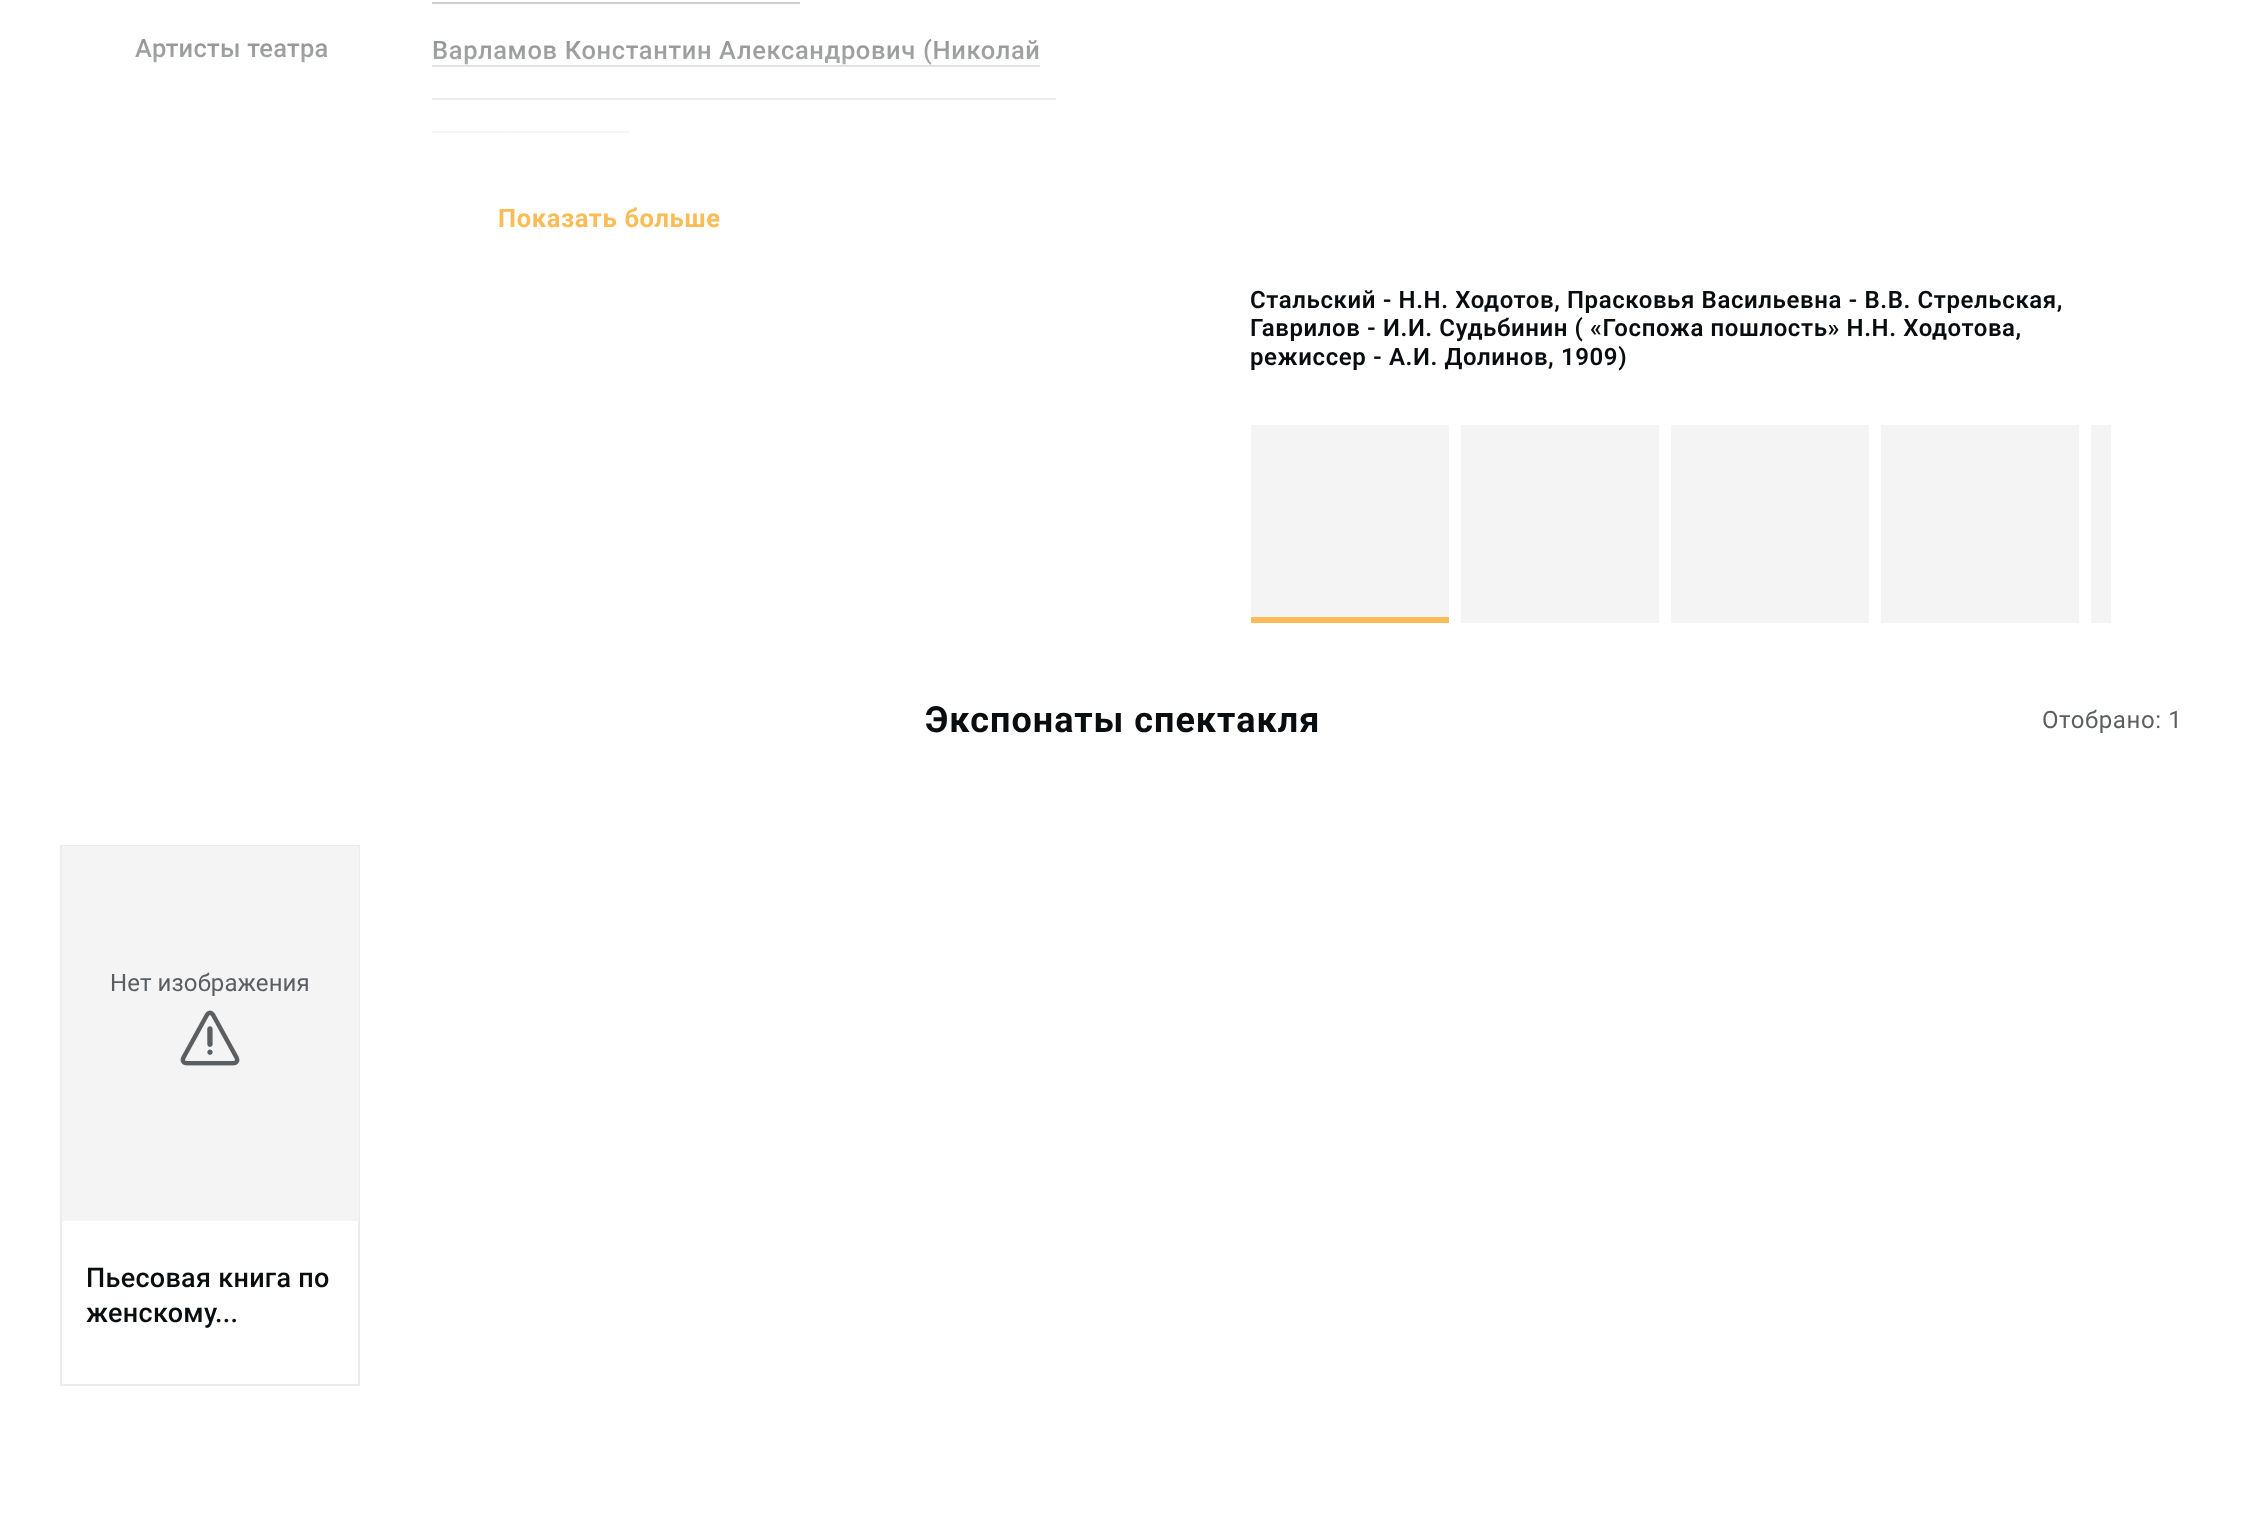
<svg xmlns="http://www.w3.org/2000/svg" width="2245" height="1526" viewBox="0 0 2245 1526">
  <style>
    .t1 { font: 500 25.5px Roboto; letter-spacing: 0.25px; fill: #0a0d10; }
    .t2 { font: 500 25.5px Roboto; letter-spacing: 0.65px; fill: #0a0d10; }
    .t3 { font: bold 25.5px Roboto; letter-spacing: 0.65px; fill: #fabc57; }
    .t4 { font: 600 24px Roboto; letter-spacing: 0.6px; fill: #0a0d10; }
    .t5 { font: bold 36px Roboto; letter-spacing: 1px; fill: #0a0d10; }
    .t6 { font: 24px Roboto; letter-spacing: 0.6px; fill: #5c5f62; }
    .t7 { font: 24px Roboto; letter-spacing: 0.1px; fill: #5c5f62; }
    .t8 { font: 500 27px Roboto; letter-spacing: 0.3px; fill: #0a0d10; }
  </style>
  <defs>
    <linearGradient id="g1" gradientUnits="userSpaceOnUse" x1="609" y1="-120" x2="609" y2="240"><stop offset="0" stop-color="#fff" stop-opacity="0.01"/><stop offset="0.8" stop-color="#fff"/></linearGradient>
  </defs>
  <rect width="100%" height="100%" fill="#fff"/>
  <rect x="432" y="2" width="368" height="2" fill="#acacac"/>
  <text x="135" y="57" class="t1">Артисты театра</text>
  <text x="432" y="59" class="t2">Варламов Константин Александрович (Николай</text>
  <rect x="432" y="65" width="608" height="2" fill="#acacac"/>
  <rect x="432" y="98" width="624" height="2" fill="#acacac"/>
  <rect x="432" y="131" width="198" height="2" fill="#acacac"/>
  <rect x="432" y="164" width="587" height="2" fill="#acacac"/>
  <rect x="135" y="2" width="921" height="164" fill="url(#g1)"/>
  <text x="498" y="227" class="t3">Показать больше</text>
  <text x="1250" y="308" class="t4">Стальский - Н.Н. Ходотов, Прасковья Васильевна - В.В. Стрельская,</text>
  <text x="1250" y="336" class="t4">Гаврилов - И.И. Судьбинин ( «Госпожа пошлость» Н.Н. Ходотова,</text>
  <text x="1250" y="365" class="t4">режиссер - А.И. Долинов, 1909)</text>
  <rect x="1251" y="425" width="198" height="192" fill="#f4f4f5"/>
  <rect x="1251" y="617" width="198" height="6" fill="#fabc57"/>
  <rect x="1461" y="425" width="198" height="198" fill="#f4f4f5"/>
  <rect x="1671" y="425" width="198" height="198" fill="#f4f4f5"/>
  <rect x="1881" y="425" width="198" height="198" fill="#f4f4f5"/>
  <rect x="2091" y="425" width="20" height="198" fill="#f4f4f5"/>
  <text x="925" y="732" class="t5">Экспонаты спектакля</text>
  <text x="2042" y="728" class="t6">Отобрано: 1</text>
  <rect x="61" y="846" width="298" height="539" fill="none" stroke="#ececec" stroke-width="2"/>
  <rect x="62" y="846" width="297" height="375" fill="#f4f4f5"/>
  <text x="110" y="991" class="t7">Нет изображения</text>
  <image x="180" y="1010" width="60" height="56" href="images/1.png"/>
  <text x="86" y="1287" class="t8">Пьесовая книга по</text>
  <text x="86" y="1322" class="t8">женскому</text>
  <text x="215" y="1322" class="t8">...</text>
</svg>
